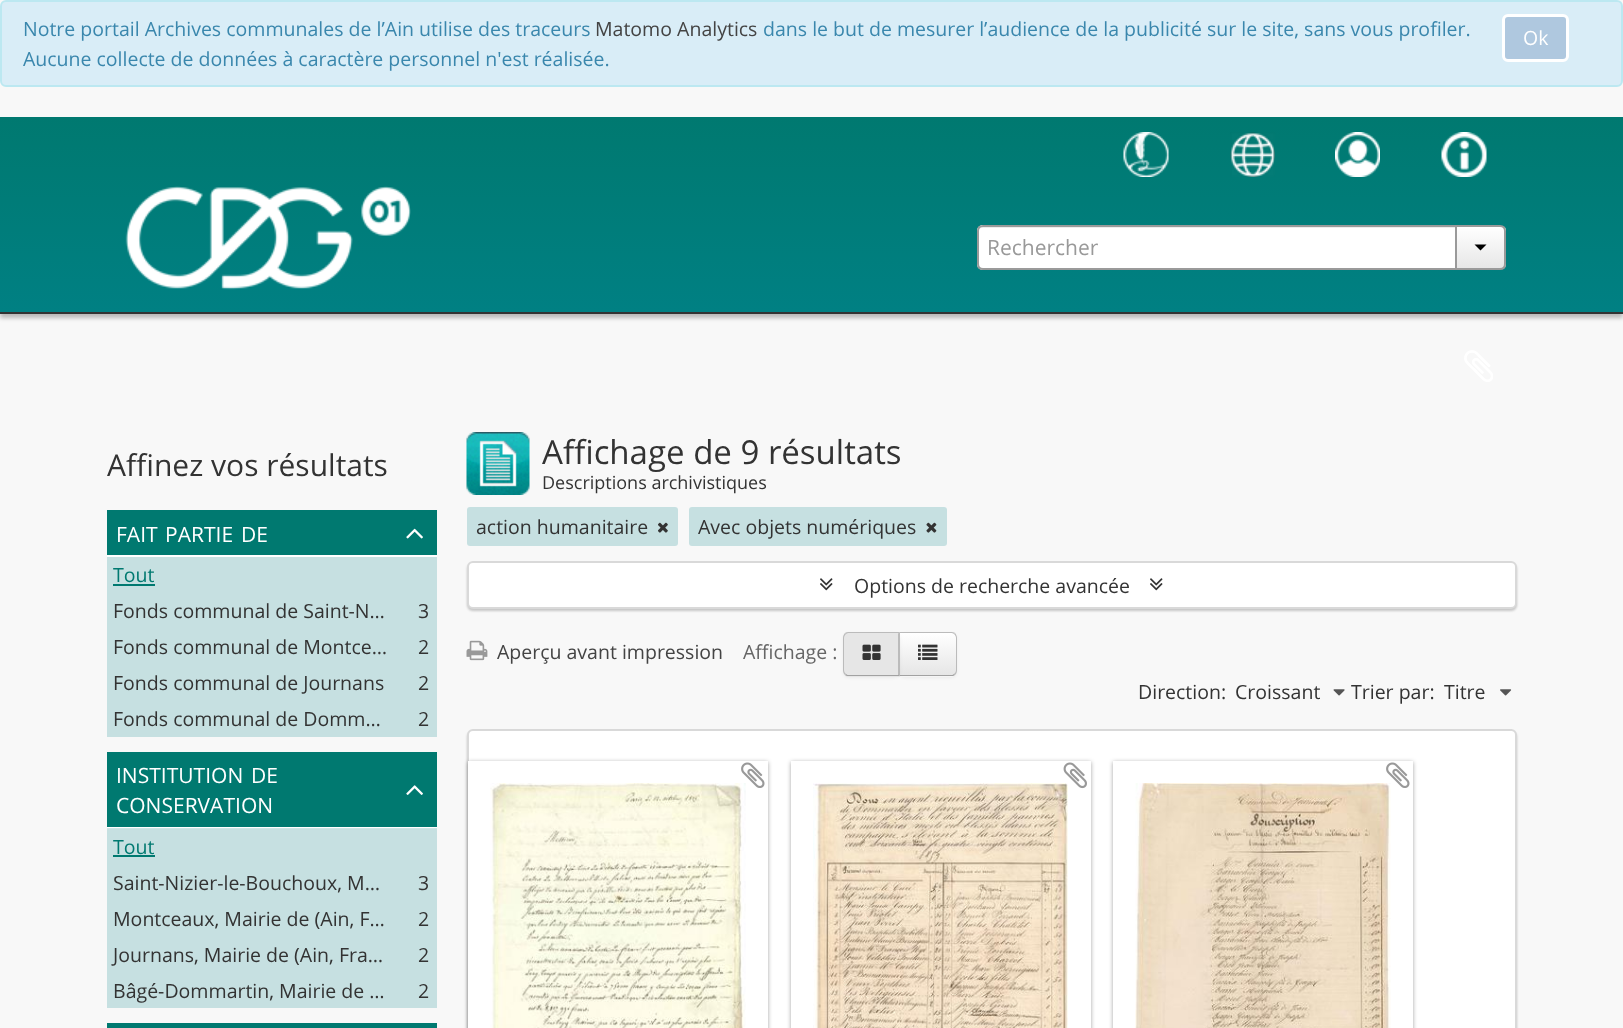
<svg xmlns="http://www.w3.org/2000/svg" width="1623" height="1028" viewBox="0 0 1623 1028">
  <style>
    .t1 { font: 19.5px Open Sans; fill: #3a87ad; }
    .t2 { font: 19.5px Open Sans; fill: #444; }
    .t3 { font: 19.5px Open Sans; fill: #fff; }
    .t4 { font: 21px Open Sans; fill: #999; }
    .t5 { font: 30px Open Sans; fill: #333; }
    .t6 { font: 21px Open Sans; fill: #fff; }
    .t7 { font: 19.5px Open Sans; fill: #007970; }
    .t8 { font: 19.5px Open Sans; fill: #333; }
    .t9 { font: 33px Open Sans; fill: #333; }
    .t10 { font: 18px Open Sans; fill: #333; }
    .t11 { font: 19.5px Open Sans; fill: #666; }
  </style>
  <defs>
    <linearGradient id="g1" gradientUnits="userSpaceOnUse" x1="812" y1="117" x2="812" y2="312"><stop offset="0" stop-color="#007970"/><stop offset="1" stop-color="#008083"/></linearGradient>
    <clipPath id="clip1"><path d="M1455 225H1500C1503.5 225 1506 227.5 1506 231V264C1506 267.5 1503.5 270 1500 270H1455Z"/></clipPath>
    <linearGradient id="g2" gradientUnits="userSpaceOnUse" x1="1481" y1="227" x2="1481" y2="269"><stop offset="0" stop-color="#fff"/><stop offset="1" stop-color="#e6e6e6"/></linearGradient>
    <clipPath id="clip2"><path d="M899 632H951C954.5 632 957 634.5 957 638V671C957 674.5 954.5 677 951 677H899Z"/></clipPath>
    <linearGradient id="g3" gradientUnits="userSpaceOnUse" x1="928" y1="633" x2="928" y2="675"><stop offset="0" stop-color="#fff"/><stop offset="1" stop-color="#e6e6e6"/></linearGradient>
    <clipPath id="clip3"><path d="M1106 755H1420V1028H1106ZM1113 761H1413V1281H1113Z" clip-rule="evenodd"/></clipPath>
  </defs>
  <rect width="100%" height="100%" fill="#f8f8f8"/>
  <rect x="107" y="829" width="330" height="179" fill="#c6e0e1"/>
  <rect x="1" y="1" width="1621" height="85" rx="5" fill="#d9edf7" stroke="#bce8f1" stroke-width="2"/>
  <text x="23" y="36" class="t1">Notre portail Archives communales de l’Ain utilise des traceurs</text>
  <text x="595" y="36" class="t2">Matomo Analytics</text>
  <text x="763" y="36" class="t1">dans le but de mesurer l’audience de la publicité sur le site, sans vous profiler.</text>
  <text x="23" y="66" class="t1">Aucune collecte de données à caractère personnel n'est réalisée.</text>
  <rect x="1503.5" y="15.5" width="64" height="45" rx="4.5" fill="#afc8df" stroke="#fff" stroke-width="3"/>
  <text x="1523" y="45" class="t3">Ok</text>
  <rect x="0" y="122" width="1623" height="196" fill="#00000040" filter="blur(2px)"/>
  <rect x="0" y="117" width="1623" height="195" fill="url(#g1)"/>
  <rect x="0" y="312" width="1623" height="2" fill="#333"/>
  <image x="1123" y="132" width="46" height="45" href="images/1.png"/>
  <image x="1230" y="132" width="45" height="45" href="images/2.png"/>
  <image x="1335" y="132" width="45" height="45" href="images/3.png"/>
  <image x="1441" y="132" width="46" height="45" href="images/4.png"/>
  <image x="125" y="186" width="286" height="104" href="images/5.png"/>
  <path d="M983 225H1457V270H983C979.5 270 977 267.5 977 264V231C977 227.5 979.5 225 983 225Z" fill="#fff"/>
  <path d="M982 228H1455V227H983C980 227 978 229 978 232C978 230 980 228 982 228Z" fill="#ececec"/>
  <path d="M983 226H1456V269H983C980 269 978 267 978 264V231C978 228 980 226 983 226Z" fill="none" stroke="#9a9a9a" stroke-width="2"/>
  <text x="987" y="255" class="t4">Rechercher</text>
  <g clip-path="url(#clip1)">
    <rect x="1457" y="227" width="49" height="42" fill="url(#g2)"/>
  </g>
  <path d="M1457 227V228H1493C1507 228 1504 229 1504 243V267C1505 266 1505 265 1505 264V232C1505 229 1503 227 1500 227Z" fill="#ffffff33"/>
  <path d="M1456 226H1500C1503 226 1505 228 1505 231V264C1505 267 1503 269 1500 269H1456Z" fill="none" stroke="#9a9a9a" stroke-width="2"/>
  <path d="M1474.5 244.5H1486.5L1480.5 250.5Z" fill="#000"/>
  <image x="1464" y="350" width="29" height="32" href="images/6.png"/>
  <text x="107" y="476" class="t5">Affinez vos résultats</text>
  <rect x="107" y="555" width="330" height="2" fill="#fff"/>
  <rect x="107" y="510" width="330" height="45" fill="#007970"/>
  <text x="116" y="542" class="t6">FAIT</text>
  <text x="165" y="542" class="t6">PARTIE</text>
  <text x="241" y="542" class="t6">DE</text>
  <image x="406" y="528" width="17" height="11" href="images/7.png"/>
  <rect x="107" y="557" width="330" height="180" fill="#c6e0e1"/>
  <text x="113" y="582" class="t7">Tout</text>
  <rect x="113" y="584" width="42" height="2" fill="#007970"/>
  <text x="113" y="618" class="t8">Fonds communal de Saint-N…</text>
  <text x="418" y="618" class="t8">3</text>
  <text x="113" y="654" class="t8">Fonds communal de Montce…</text>
  <text x="418" y="654" class="t8">2</text>
  <text x="113" y="690" class="t8">Fonds communal de Journans</text>
  <text x="418" y="690" class="t8">2</text>
  <text x="113" y="726" class="t8">Fonds communal de Domm…</text>
  <text x="418" y="726" class="t8">2</text>
  <rect x="107" y="827" width="330" height="1" fill="#fff"/>
  <rect x="107" y="828" width="330" height="1" fill="#cce6e6"/>
  <rect x="107" y="752" width="330" height="75" fill="#007970"/>
  <text x="116" y="783" class="t6">INSTITUTION</text>
  <text x="251" y="783" class="t6">DE</text>
  <image x="406" y="785" width="17" height="10" href="images/8.png"/>
  <text x="116" y="813" class="t6">CONSERVATION</text>
  <text x="113" y="854" class="t7">Tout</text>
  <rect x="113" y="855" width="42" height="2" fill="#007970"/>
  <text x="113" y="890" class="t8">Saint-Nizier-le-Bouchoux, M…</text>
  <text x="418" y="890" class="t8">3</text>
  <text x="113" y="926" class="t8">Montceaux, Mairie de (Ain, F…</text>
  <text x="418" y="926" class="t8">2</text>
  <text x="113" y="962" class="t8">Journans, Mairie de (Ain, Fra…</text>
  <text x="418" y="962" class="t8">2</text>
  <text x="113" y="998" class="t8">Bâgé-Dommartin, Mairie de …</text>
  <text x="418" y="998" class="t8">2</text>
  <rect x="107" y="1023" width="330" height="5" fill="#007970"/>
  <image x="466" y="432" width="64" height="63" href="images/9.png"/>
  <text x="542" y="464" class="t9">Affichage de 9 résultats</text>
  <text x="542" y="489" class="t10">Descriptions archivistiques</text>
  <rect x="467" y="507" width="211" height="39" rx="3" fill="#c6e0e1"/>
  <text x="476" y="534" class="t8">action humanitaire</text>
  <image x="658" y="522" width="10" height="11" href="images/10.png"/>
  <rect x="689" y="507" width="258" height="39" rx="3" fill="#c6e0e1"/>
  <text x="698" y="534" class="t8">Avec objets numériques</text>
  <image x="926" y="522" width="11" height="11" href="images/11.png"/>
  <rect x="467" y="563" width="1050" height="48" rx="6" fill="#00000033" filter="blur(1px)"/>
  <rect x="468" y="562" width="1048" height="46" rx="5" fill="#fff" stroke="#d9d9d9" stroke-width="2"/>
  <image x="820" y="578" width="13" height="13" href="images/12.png"/>
  <text x="854" y="593" class="t8">Options de recherche avancée</text>
  <image x="1150" y="578" width="13" height="13" href="images/12.png"/>
  <image x="466" y="640" width="22" height="21" href="images/13.png"/>
  <text x="497" y="659" class="t2">Aperçu avant impression</text>
  <text x="743" y="659" class="t11">Affichage :</text>
  <rect x="899" y="633" width="58" height="45" rx="6" fill="#0000000d" filter="blur(1.5px)"/>
  <path d="M899 632H951C954.5 632 957 634.5 957 638V671C957 674.5 954.5 677 951 677H899Z" fill="#f5f5f5"/>
  <g clip-path="url(#clip2)">
    <rect x="900" y="633" width="57" height="42" fill="url(#g3)"/>
  </g>
  <path d="M900 633H951C952 633 953 633 954 634L955 633C954 632 952 632 951 632H899Z" fill="#bbb"/>
  <path d="M955 633C956 634 957 636 957 638V670C957 672 956 674 955 675L954 674C955 673 956 672 956 670V638C956 636 955 635 954 634Z" fill="#bbb"/>
  <path d="M955 675C954 676 952 676 951 676H899L900 675H951C952 675 953 675 954 674Z" fill="#a2a2a2"/>
  <rect x="843" y="633" width="57" height="45" rx="6" fill="#0000000d" filter="blur(1.5px)"/>
  <path d="M849 632H900V677H849C845.5 677 843 674.5 843 671V638C843 634.5 845.5 632 849 632Z" fill="#e6e6e6"/>
  <path d="M849 632C848 632 846 632 845 633L846 634C847 633 848 633 849 633H898V634L900 632Z" fill="#bbb"/>
  <path d="M900 676V632L898 634V674Z" fill="#bbb"/>
  <path d="M900 676H849C848 676 846 676 845 675L846 674C847 675 848 675 849 675H898V674Z" fill="#a2a2a2"/>
  <path d="M843 638V670C843 672 844 674 845 675L846 674C845 673 844 672 844 670V638C844 636 845 635 846 634L845 633C844 634 843 636 843 638Z" fill="#bbb"/>
  <image x="862" y="644" width="19" height="16" href="images/14.png"/>
  <image x="918" y="644" width="20" height="16" href="images/15.png"/>
  <text x="1138" y="699" class="t8">Direction:</text>
  <text x="1235" y="699" class="t8">Croissant</text>
  <image x="1333" y="689" width="12" height="7" href="images/16.png"/>
  <text x="1351" y="699" class="t8">Trier par:</text>
  <text x="1444" y="699" class="t8">Titre</text>
  <image x="1500" y="689" width="12" height="7" href="images/17.png"/>
  <rect x="467" y="731" width="1050" height="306" rx="6" fill="#00000033" filter="blur(1px)"/>
  <rect x="468" y="730" width="1048" height="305" rx="5" fill="#fff" stroke="#d9d9d9" stroke-width="2"/>
  <rect x="468" y="762" width="300" height="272" fill="#19191966" filter="blur(2px)"/>
  <rect x="468" y="761" width="300" height="267" fill="#fff"/>
  <image x="490" y="783" width="256" height="245" href="images/19.png"/>
  <image x="741" y="762" width="24" height="26" href="images/18.png"/>
  <rect x="791" y="762" width="300" height="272" fill="#19191966" filter="blur(2px)"/>
  <rect x="791" y="761" width="300" height="267" fill="#fff"/>
  <image x="813" y="783" width="255" height="245" href="images/21.png"/>
  <image x="1063" y="762" width="24" height="27" href="images/20.png"/>
  <g clip-path="url(#clip3)">
    <rect x="1113" y="762" width="300" height="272" fill="#19191966" filter="blur(2px)"/>
  </g>
  <image x="1135" y="783" width="256" height="245" href="images/23.png"/>
  <image x="1386" y="762" width="24" height="26" href="images/22.png"/>
</svg>
